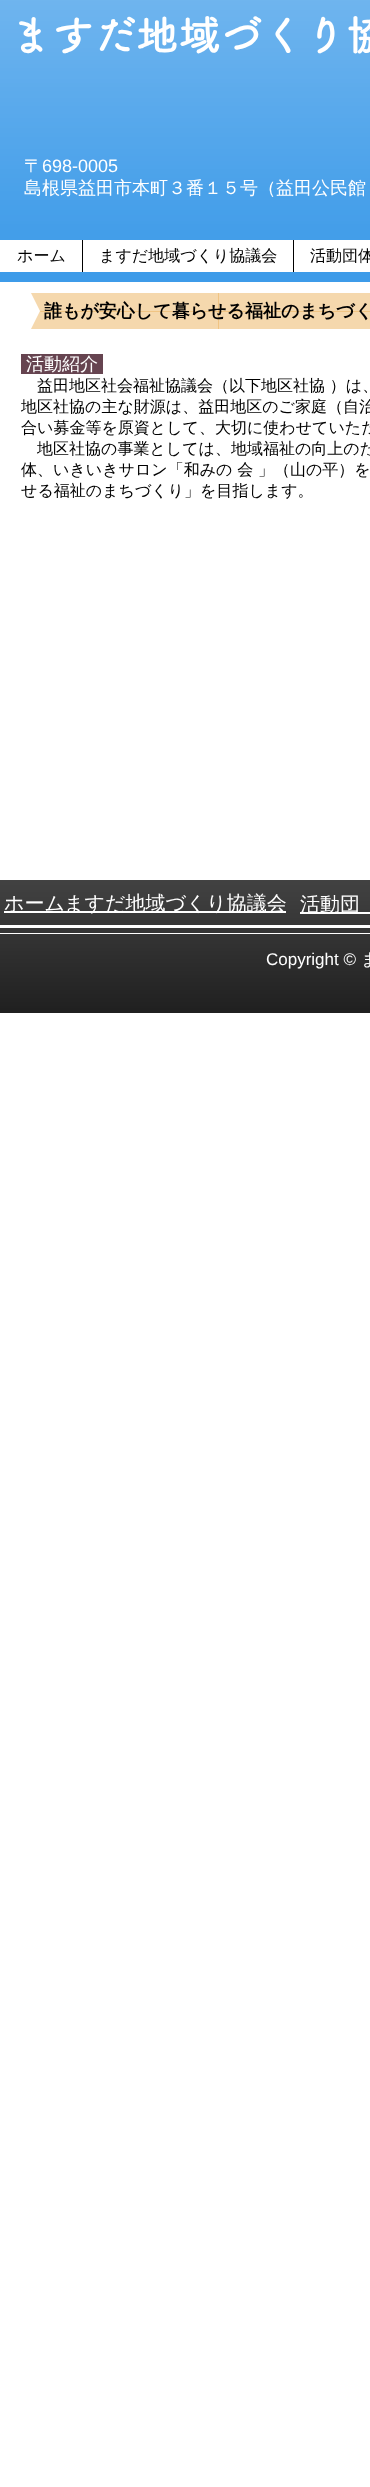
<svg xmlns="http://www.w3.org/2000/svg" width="370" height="2487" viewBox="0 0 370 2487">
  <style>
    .t1 { font: bold 42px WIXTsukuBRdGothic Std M; fill: #fff; }
    .t2 { font: 500 18px WenQuanYi Zen Hei; fill: #fff; }
    .t3 { font: 18px Liberation Sans; fill: #fff; }
    .t4 { font: 500 16px WenQuanYi Zen Hei; fill: #000; }
    .t5 { font: bold 18px WenQuanYi Zen Hei; fill: #000; }
    .t6 { font: 500 20px WenQuanYi Zen Hei; fill: #fff; }
    .t7 { font: 17px Liberation Sans; fill: #fff; }
    .t8 { font: 500 17px WenQuanYi Zen Hei; fill: #fff; }
  </style>
  <defs>
    <clipPath id="clip1"><rect x="31" y="293" width="188" height="19"/></clipPath>
    <clipPath id="clip2"><rect x="218" y="293" width="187" height="19"/></clipPath>
    <clipPath id="clip3"><rect x="31" y="311" width="188" height="18"/></clipPath>
    <clipPath id="clip4"><rect x="218" y="311" width="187" height="18"/></clipPath>
  </defs>
  <rect width="100%" height="100%" fill="#fff"/>
  <rect x="0" y="0" width="370" height="282" fill="#3d9be9"/>
  <image x="0" y="0" width="370" height="240" href="images/1.png"/>
  <text x="10" y="51" class="t1">ますだ地域づくり協</text>
  <text x="24" y="172" class="t2">〒</text>
  <text x="42" y="172" class="t3">698-0005</text>
  <text x="24" y="194" class="t2">島根県益田市本町３番１５号（益田公民館</text>
  <rect x="0" y="240" width="370" height="32" fill="#fff"/>
  <text x="17" y="261" class="t4">ホーム</text>
  <rect x="82" y="240" width="1" height="32" fill="#000"/>
  <text x="99" y="261" class="t4">ますだ地域づくり協議会</text>
  <rect x="293" y="240" width="1" height="32" fill="#000"/>
  <text x="310" y="261" class="t4">活動団体</text>
  <g clip-path="url(#clip1)">
    <path d="M31 293H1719L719 1293H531Z" fill="#f5d8ad"/>
  </g>
  <g clip-path="url(#clip2)">
    <path d="M-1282 293H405L-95 1293H-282Z" fill="#ebaf577d"/>
  </g>
  <g clip-path="url(#clip3)">
    <path d="M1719 329H31L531-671H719Z" fill="#ebaf577d"/>
  </g>
  <g clip-path="url(#clip4)">
    <path d="M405 329H-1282L-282-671H-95Z" fill="#ebaf577d"/>
  </g>
  <text x="44" y="317" class="t5">誰もが安心して暮らせる福祉のまちづく</text>
  <rect x="21" y="354" width="82" height="20" fill="#664450"/>
  <text x="26" y="370" class="t2">活動紹介</text>
  <text x="37" y="391" class="t4">益田地区社会福祉協議会（以下地区社協 ）は、</text>
  <text x="21" y="412" class="t4">地区社協の主な財源は、益田地区のご家庭（自治</text>
  <text x="21" y="433" class="t4">合い募金等を原資として、大切に使わせていただ</text>
  <text x="37" y="454" class="t4">地区社協の事業としては、地域福祉の向上のた</text>
  <text x="21" y="475" class="t4">体、いきいきサロン「和みの 会 」（山の平）を</text>
  <text x="21" y="496" class="t4">せる福祉のまちづくり」を目指します。</text>
  <rect x="0" y="880" width="370" height="133" fill="#000"/>
  <image x="0" y="880" width="370" height="133" href="images/2.png"/>
  <rect x="4" y="911" width="282" height="2" fill="#fff"/>
  <text x="4" y="910" class="t6">ホーム</text>
  <text x="64" y="910" class="t6">ますだ地域づくり協議会</text>
  <rect x="300" y="912" width="70" height="2" fill="#fff"/>
  <text x="300" y="911" class="t6">活動団</text>
  <rect x="0" y="925" width="370" height="3" fill="#fff"/>
  <rect x="0" y="933" width="370" height="1" fill="#fff"/>
  <text x="266" y="965" class="t7">Copyright ©</text>
  <text x="361" y="965" class="t8">ま</text>
</svg>
